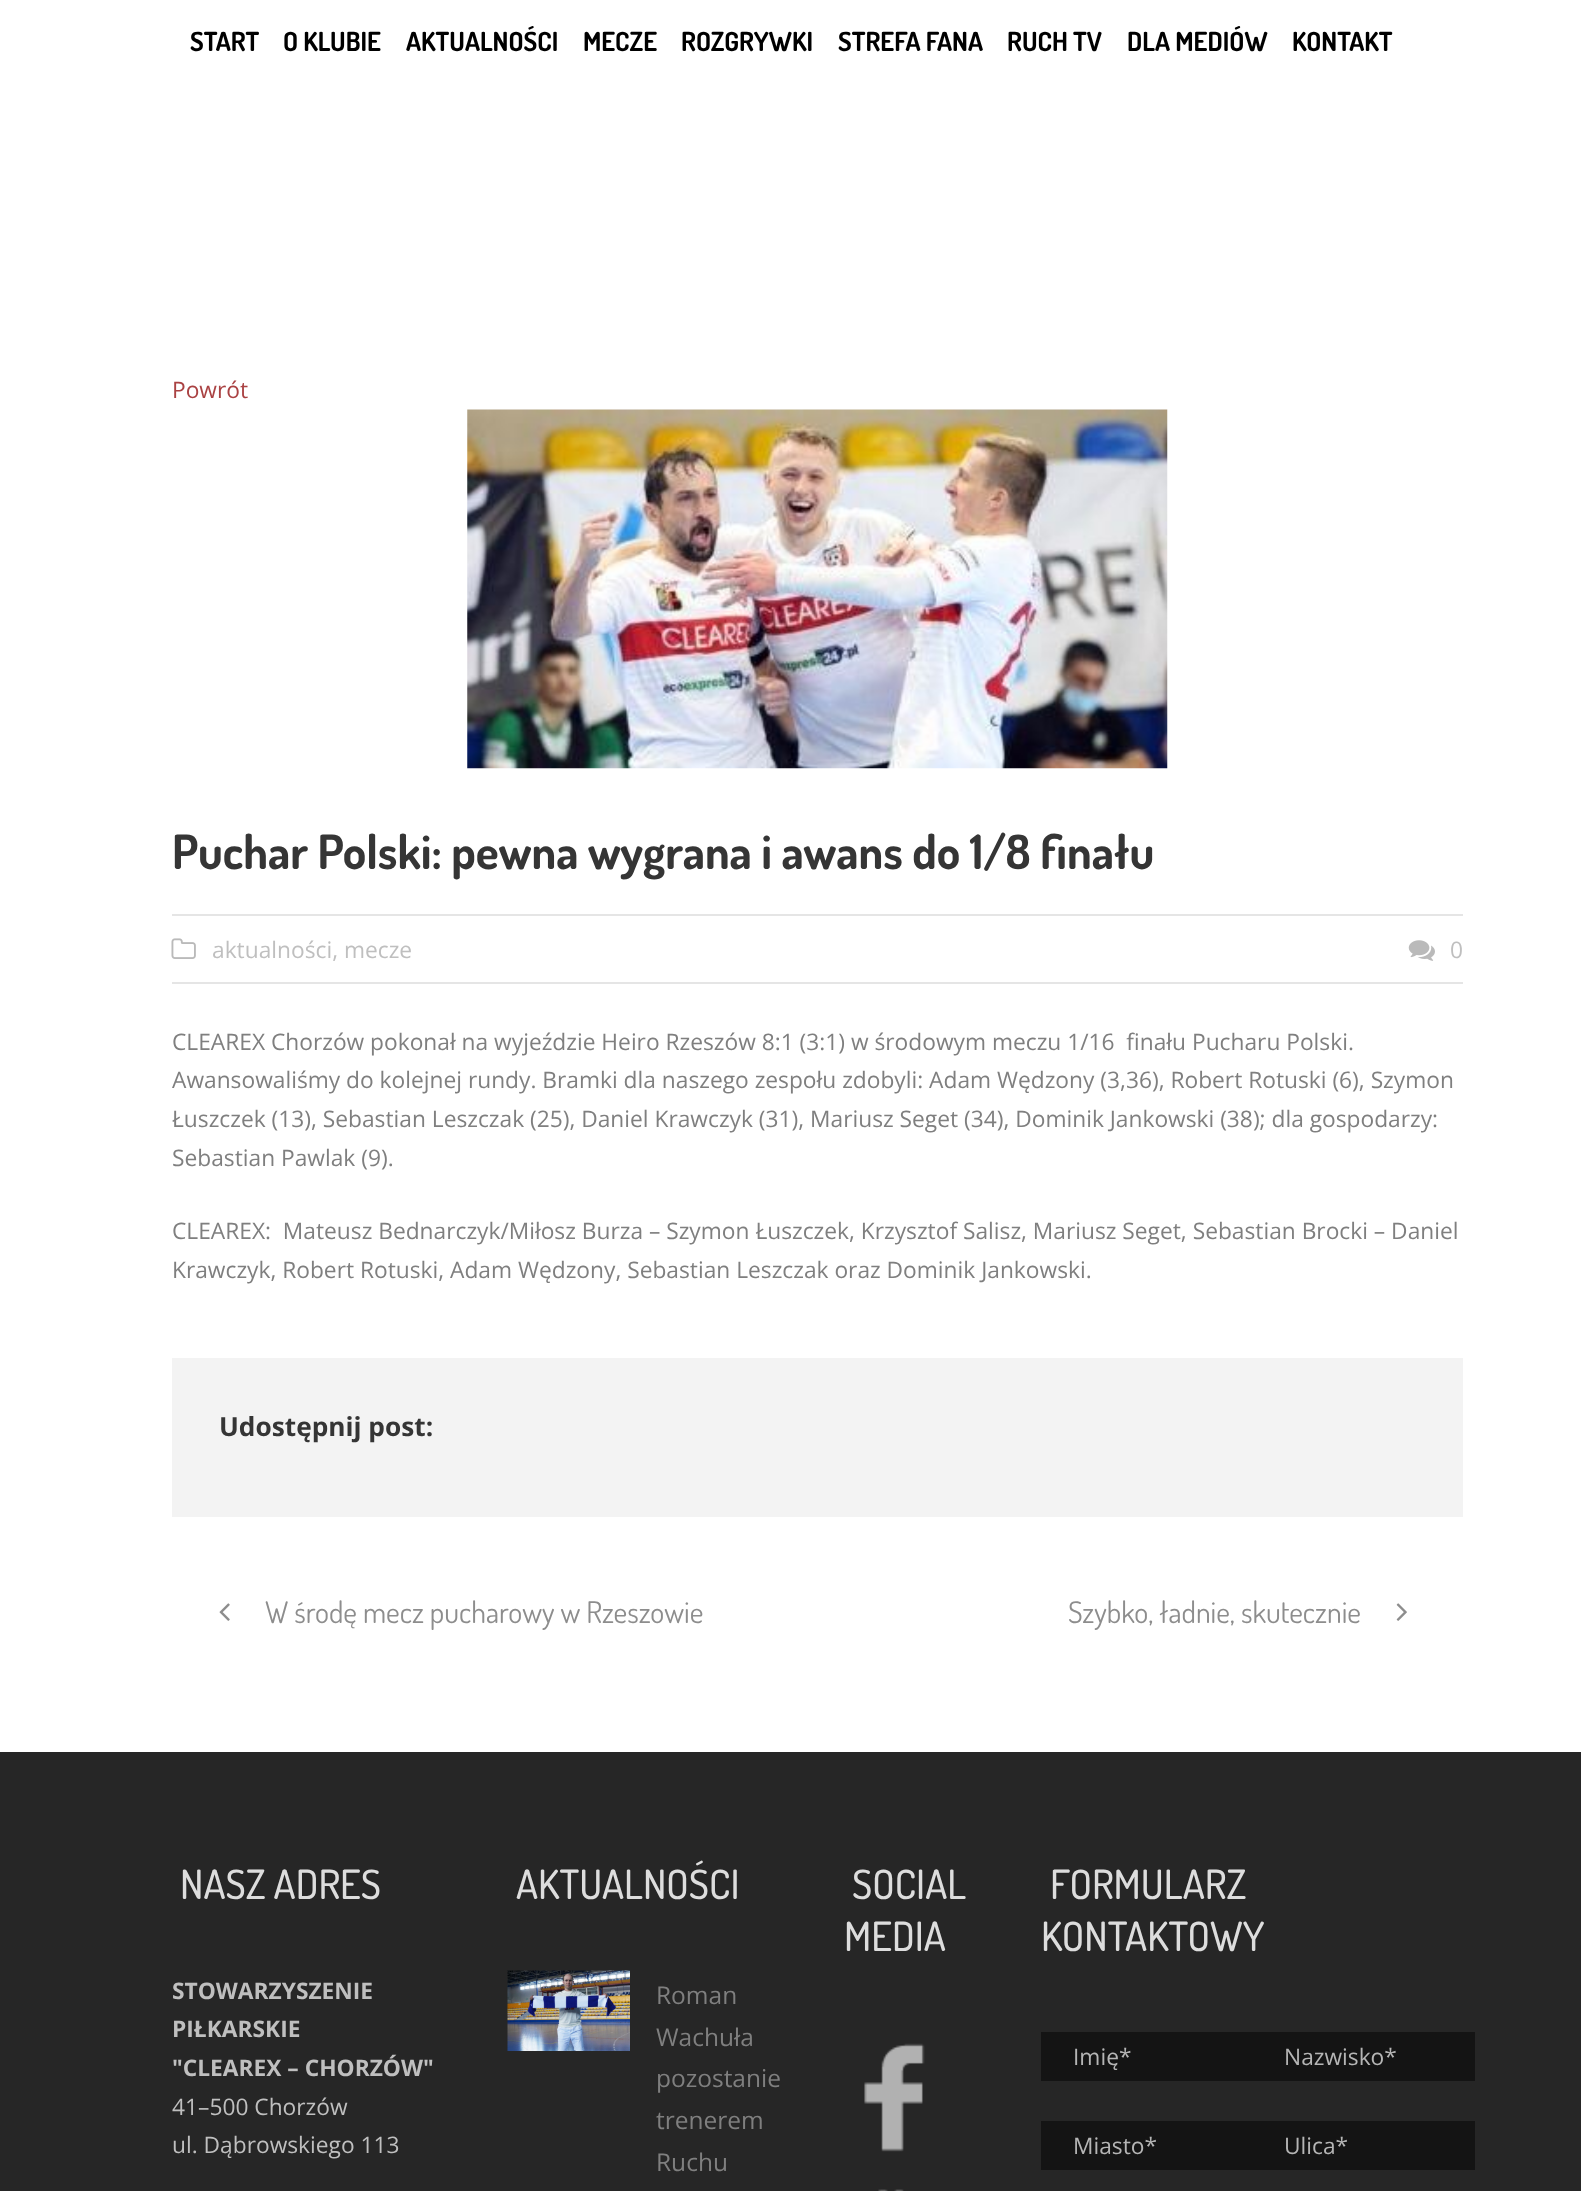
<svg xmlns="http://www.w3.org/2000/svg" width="1581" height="2191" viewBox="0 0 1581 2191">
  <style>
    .t1 { font: bold 26.25px Dosis; fill: #000; }
    .t2 { font: 22.75px Open Sans; fill: #aa4243; }
    .t3 { font: bold 47.25px Dosis; fill: #353535; }
    .t4 { font: 22.75px Open Sans; fill: #bfbfbf; }
    .t5 { font: 22.75px Open Sans; fill: #7f7f7f; }
    .t6 { font: bold 26.25px Open Sans; fill: #353535; }
    .t7 { font: 29.75px Dosis; fill: #8d8d8d; }
    .t8 { font: 500 40.25px Dosis; fill: #ddd; }
    .t9 { font: bold 22.75px Open Sans; fill: #bfbfbf; }
    .t10 { font: 24.5px Open Sans; fill: #7f7f7f; }
    .t11 { font: 22.75px Open Sans; fill: #b5b5b5; }
  </style>
  <rect width="100%" height="100%" fill="#fff"/>
  <text x="190" y="51" class="t1">START</text>
  <text x="283" y="51" class="t1">O KLUBIE</text>
  <text x="406" y="51" class="t1">AKTUALNOŚCI</text>
  <text x="583" y="51" class="t1">MECZE</text>
  <text x="681" y="51" class="t1">ROZGRYWKI</text>
  <text x="838" y="51" class="t1">STREFA FANA</text>
  <text x="1007" y="51" class="t1">RUCH TV</text>
  <text x="1127" y="51" class="t1">DLA MEDIÓW</text>
  <text x="1292" y="51" class="t1">KONTAKT</text>
  <text x="172" y="398" class="t2">Powrót</text>
  <image x="467" y="409" width="701" height="360" href="images/1.png"/>
  <text x="172" y="869" class="t3">Puchar Polski: pewna wygrana i awans do 1/8 finału</text>
  <rect x="172" y="914" width="1291" height="2" fill="#e5e5e5"/>
  <rect x="172" y="982" width="1291" height="2" fill="#e5e5e5"/>
  <image x="171" y="938" width="25" height="21" href="images/2.png"/>
  <text x="212" y="958" class="t4">aktualności, mecze</text>
  <image x="1408" y="940" width="27" height="21" href="images/3.png"/>
  <text x="1450" y="958" class="t4">0</text>
  <text x="172" y="1050" class="t5" xml:space="preserve">CLEAREX Chorzów pokonał na wyjeździe Heiro Rzeszów 8:1 (3:1) w środowym meczu 1/16  finału Pucharu Polski.</text>
  <text x="172" y="1088" class="t5">Awansowaliśmy do kolejnej rundy. Bramki dla naszego zespołu zdobyli: Adam Wędzony (3,36), Robert Rotuski (6), Szymon</text>
  <text x="172" y="1127" class="t5">Łuszczek (13), Sebastian Leszczak (25), Daniel Krawczyk (31), Mariusz Seget (34), Dominik Jankowski (38); dla gospodarzy:</text>
  <text x="172" y="1166" class="t5">Sebastian Pawlak (9).</text>
  <text x="172" y="1239" class="t5" xml:space="preserve">CLEAREX:  Mateusz Bednarczyk/Miłosz Burza – Szymon Łuszczek, Krzysztof Salisz, Mariusz Seget, Sebastian Brocki – Daniel</text>
  <text x="172" y="1278" class="t5">Krawczyk, Robert Rotuski, Adam Wędzony, Sebastian Leszczak oraz Dominik Jankowski.</text>
  <rect x="172" y="1358" width="1291" height="159" fill="#f3f3f3"/>
  <text x="219" y="1436" class="t6">Udostępnij post:</text>
  <image x="219" y="1603" width="11" height="18" href="images/4.png"/>
  <text x="265" y="1623" class="t7">W środę mecz pucharowy w Rzeszowie</text>
  <text x="1068" y="1623" class="t7">Szybko, ładnie, skutecznie</text>
  <image x="1396" y="1603" width="11" height="18" href="images/5.png"/>
  <rect x="0" y="1752" width="1581" height="439" fill="#262626"/>
  <text x="180" y="1899" class="t8">NASZ ADRES</text>
  <text x="172" y="1999" class="t9">STOWARZYSZENIE</text>
  <text x="172" y="2037" class="t9">PIŁKARSKIE</text>
  <text x="172" y="2076" class="t9">"CLEAREX – CHORZÓW"</text>
  <text x="172" y="2115" class="t4">41–500 Chorzów</text>
  <text x="172" y="2153" class="t4">ul. Dąbrowskiego 113</text>
  <text x="516" y="1899" class="t8">AKTUALNOŚCI</text>
  <image x="507" y="1970" width="123" height="81" href="images/6.png"/>
  <text x="656" y="2004" class="t10">Roman</text>
  <text x="656" y="2046" class="t10">Wachuła</text>
  <text x="656" y="2087" class="t10">pozostanie</text>
  <text x="656" y="2129" class="t10">trenerem</text>
  <text x="656" y="2171" class="t10">Ruchu</text>
  <text x="852" y="1899" class="t8">SOCIAL</text>
  <text x="844" y="1951" class="t8">MEDIA</text>
  <image x="864" y="2043" width="61" height="109" href="images/7.png"/>
  <image x="878" y="2189" width="26" height="2" href="images/8.png"/>
  <text x="1050" y="1899" class="t8">FORMULARZ</text>
  <text x="1041" y="1951" class="t8">KONTAKTOWY</text>
  <rect x="1041" y="2032" width="434" height="49" fill="#141414"/>
  <text x="1073" y="2065" class="t11">Imię*</text>
  <text x="1284" y="2065" class="t11">Nazwisko*</text>
  <rect x="1041" y="2121" width="434" height="49" fill="#141414"/>
  <text x="1073" y="2154" class="t11">Miasto*</text>
  <text x="1284" y="2154" class="t11">Ulica*</text>
</svg>
